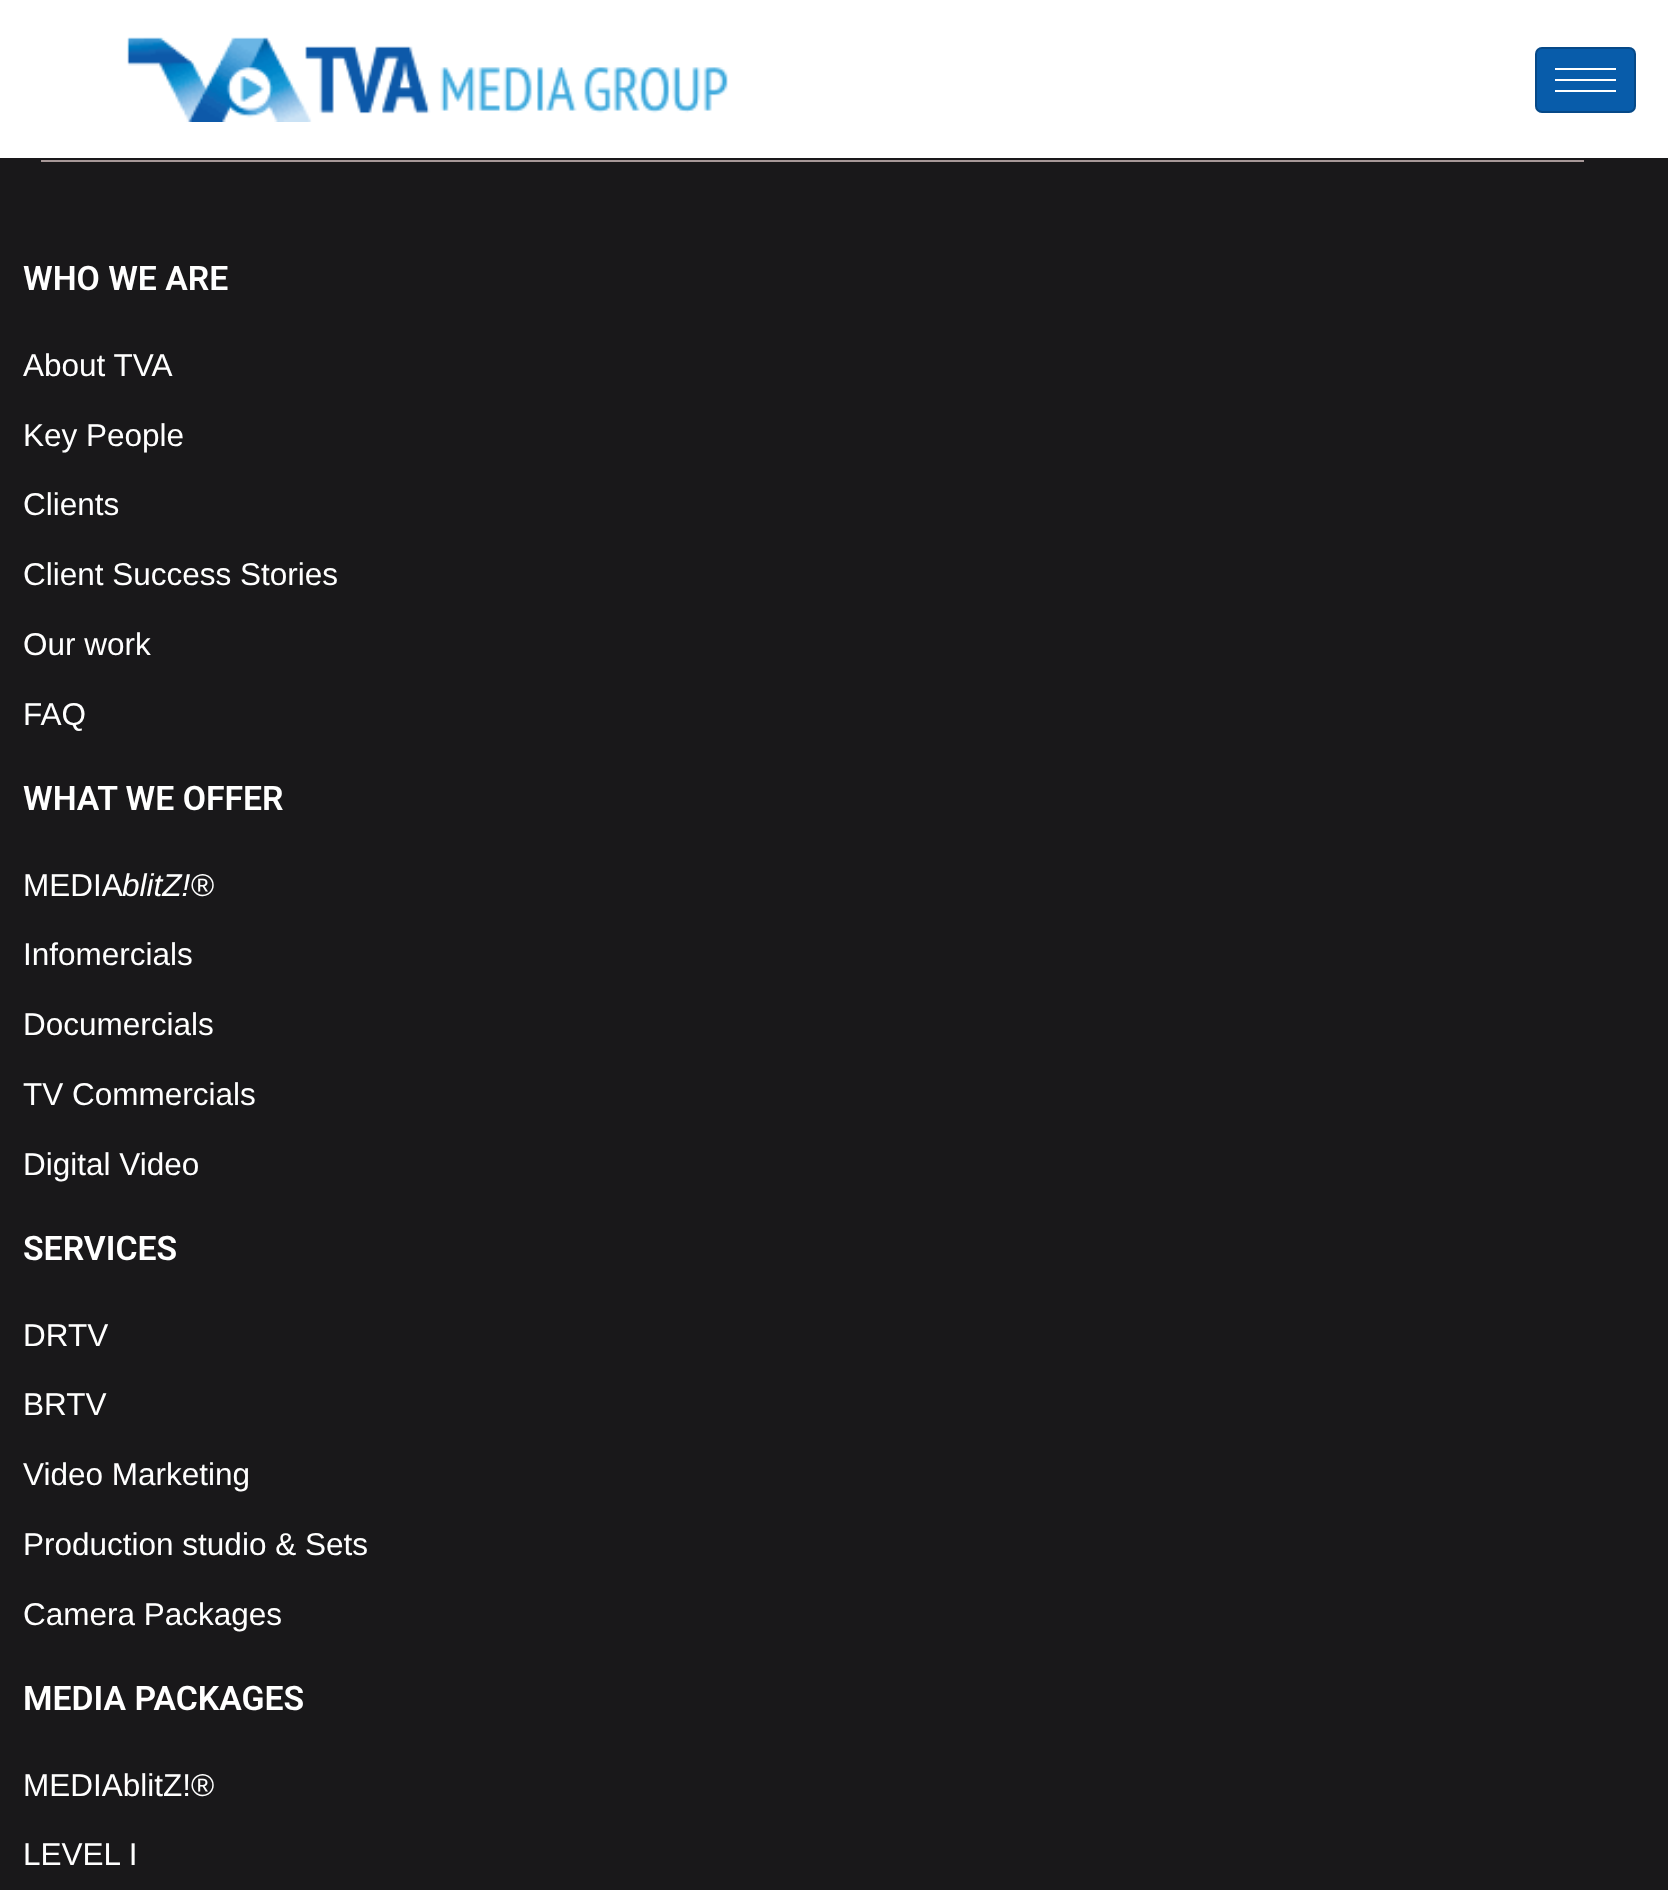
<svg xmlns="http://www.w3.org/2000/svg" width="1668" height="1890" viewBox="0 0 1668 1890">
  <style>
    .t1 { font: 600 33.75px Roboto; fill: #fff; }
    .t2 { font: 31.5px Liberation Sans; fill: #fff; }
    .t3 { font: italic 31.5px Liberation Sans; fill: #fff; }
  </style>
  <rect width="100%" height="100%" fill="#19181a"/>
  <rect x="0" y="0" width="1668" height="158" fill="#fff"/>
  <image x="127" y="37" width="601" height="85" href="images/1.png"/>
  <rect x="1535" y="47" width="101" height="66" rx="7" fill="#085caa"/>
  <rect x="1536" y="48" width="99" height="64" rx="6" fill="none" stroke="#00000033" stroke-width="2"/>
  <rect x="1555" y="68" width="61" height="2" fill="#fff"/>
  <rect x="1555" y="79" width="61" height="2" fill="#fff"/>
  <rect x="1555" y="90" width="61" height="2" fill="#fff"/>
  <rect x="41" y="160" width="1543" height="2" fill="#a79898"/>
  <text x="23" y="290" class="t1">WHO WE ARE</text>
  <text x="23" y="376" class="t2">About TVA</text>
  <text x="23" y="446" class="t2">Key People</text>
  <text x="23" y="515" class="t2">Clients</text>
  <text x="23" y="585" class="t2">Client Success Stories</text>
  <text x="23" y="655" class="t2">Our work</text>
  <text x="23" y="725" class="t2">FAQ</text>
  <text x="23" y="810" class="t1">WHAT WE OFFER</text>
  <text x="23" y="896" class="t2">MEDIA</text>
  <text x="122" y="896" class="t3">blitZ!</text>
  <text x="191" y="896" class="t2">®</text>
  <text x="23" y="965" class="t2">Infomercials</text>
  <text x="23" y="1035" class="t2">Documercials</text>
  <text x="23" y="1105" class="t2">TV Commercials</text>
  <text x="23" y="1175" class="t2">Digital Video</text>
  <text x="23" y="1260" class="t1">SERVICES</text>
  <text x="23" y="1346" class="t2">DRTV</text>
  <text x="23" y="1415" class="t2">BRTV</text>
  <text x="23" y="1485" class="t2">Video Marketing</text>
  <text x="23" y="1555" class="t2">Production studio &amp; Sets</text>
  <text x="23" y="1625" class="t2">Camera Packages</text>
  <text x="23" y="1710" class="t1">MEDIA PACKAGES</text>
  <text x="23" y="1796" class="t2">MEDIAblitZ!®</text>
  <text x="23" y="1865" class="t2">LEVEL I</text>
</svg>
